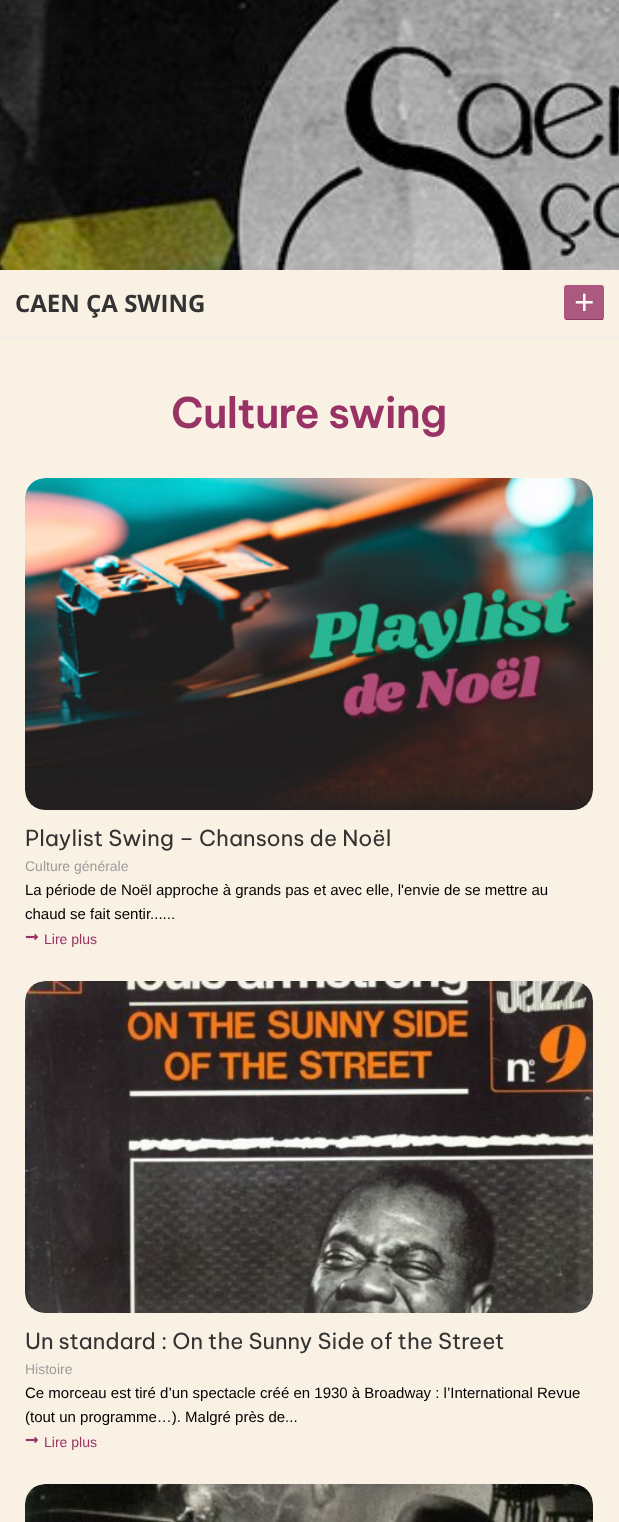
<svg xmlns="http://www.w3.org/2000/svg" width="619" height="1522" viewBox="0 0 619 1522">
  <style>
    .t1 { font: bold 24px Open Sans; fill: #333; }
    .t2 { font: 36px Open Sans; fill: #fefcfa; }
    .t3 { font: 600 42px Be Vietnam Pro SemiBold; letter-spacing: -0.75px; fill: #936; }
    .t4 { font: 22px Be Vietnam Pro; fill: #333; }
    .t5 { font: 14px Liberation Sans; fill: #9c9c9c; }
    .t6 { font: 15px Liberation Sans; fill: #000; }
    .t7 { font: 14px Liberation Sans; fill: #936; }
  </style>
  <rect width="100%" height="100%" fill="#f9f1e4"/>
  <image x="0" y="0" width="619" height="270" href="images/1.png"/>
  <rect x="0" y="337" width="619" height="1" fill="#ededed"/>
  <text x="15" y="312" class="t1">CAEN ÇA SWING</text>
  <rect x="564" y="285" width="40" height="35" rx="3" fill="#ac597f"/>
  <rect x="566" y="319" width="37" height="1" fill="#8c395f"/>
  <text x="574" y="315" class="t2">+</text>
  <text x="171" y="428" class="t3">Culture swing</text>
  <image x="25" y="478" width="568" height="332" href="images/2.png"/>
  <text x="25" y="846" class="t4">Playlist Swing – Chansons de Noël</text>
  <text x="25" y="871" class="t5">Culture générale</text>
  <text x="25" y="895" class="t6">La période de Noël approche à grands pas et avec elle, l'envie de se mettre au</text>
  <text x="25" y="919" class="t6">chaud se fait sentir......</text>
  <image x="25" y="934" width="13" height="6" href="images/3.png"/>
  <text x="44" y="944" class="t7">Lire plus</text>
  <image x="25" y="981" width="568" height="332" href="images/4.png"/>
  <text x="25" y="1349" class="t4">Un standard : On the Sunny Side of the Street</text>
  <text x="25" y="1374" class="t5">Histoire</text>
  <text x="25" y="1398" class="t6">Ce morceau est tiré d’un spectacle créé en 1930 à Broadway : l’International Revue</text>
  <text x="25" y="1422" class="t6">(tout un programme…). Malgré près de...</text>
  <image x="25" y="1437" width="13" height="6" href="images/3.png"/>
  <text x="44" y="1447" class="t7">Lire plus</text>
  <image x="25" y="1484" width="568" height="38" href="images/5.png"/>
</svg>
